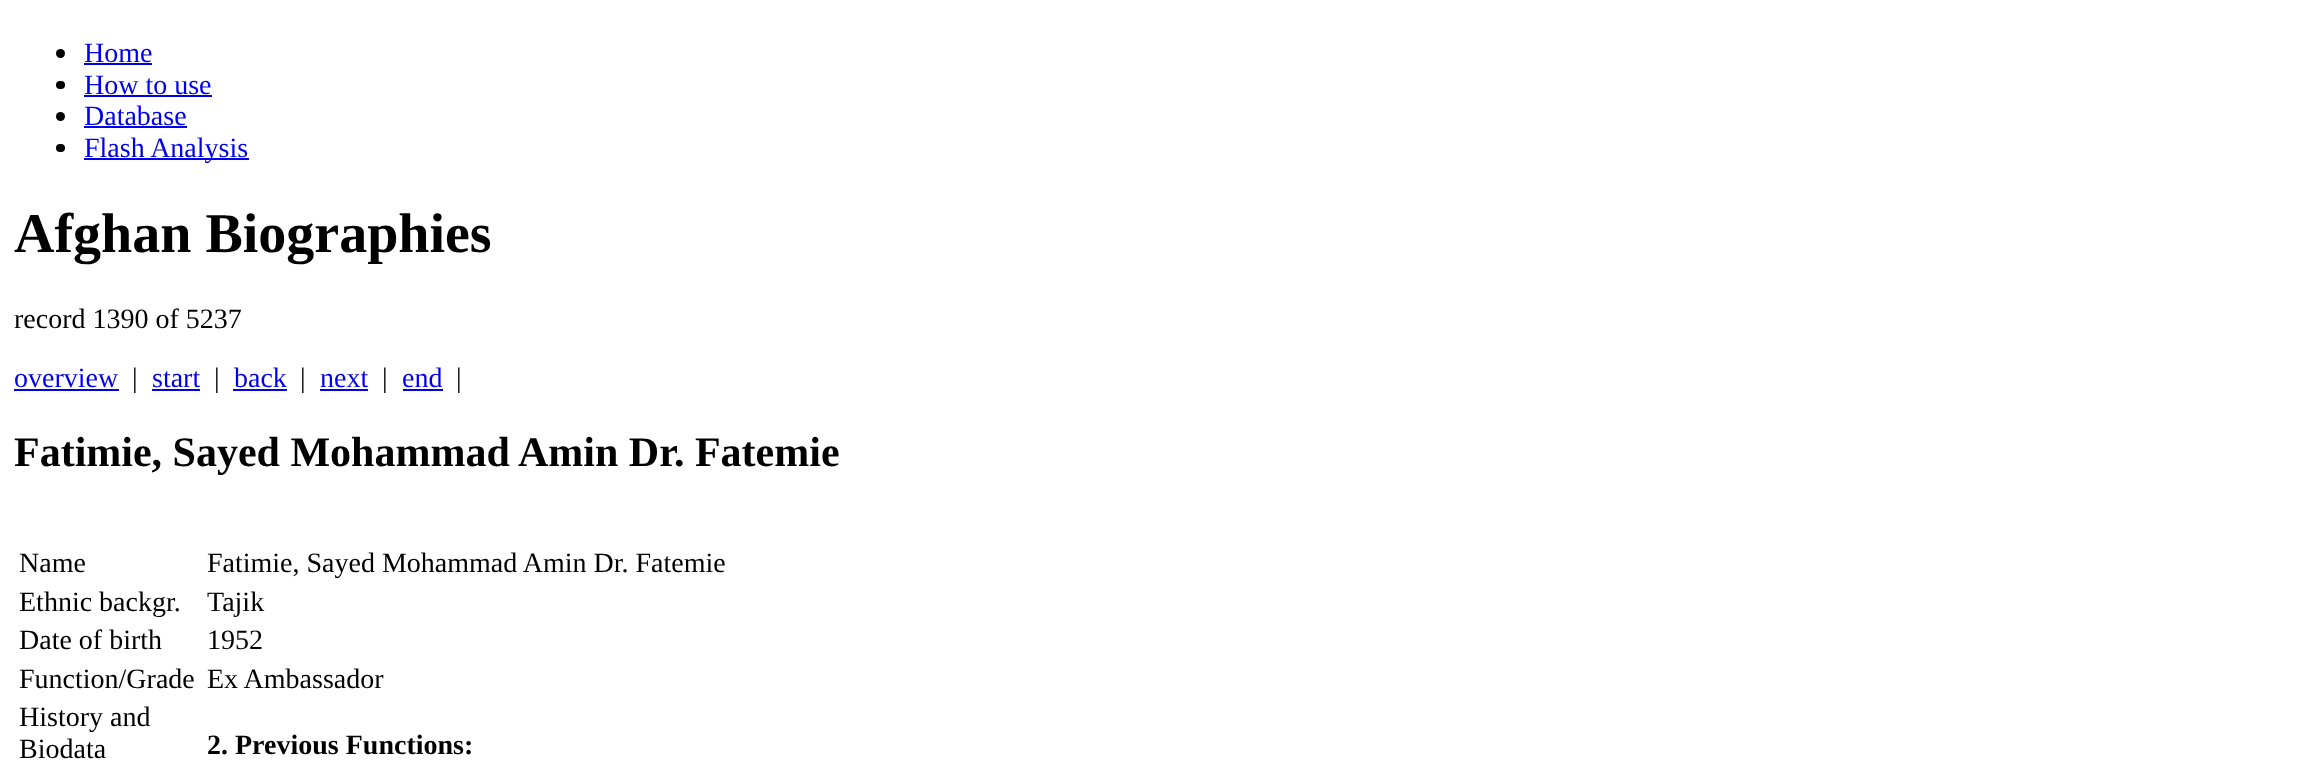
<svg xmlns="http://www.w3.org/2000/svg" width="2299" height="772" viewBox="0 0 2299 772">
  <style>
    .t1 { font: 28px Liberation Serif; fill: #00e; }
    .t2 { font: bold 56px Liberation Serif; fill: #000; }
    .t3 { font: 28px Liberation Serif; fill: #000; }
    .t4 { font: bold 42px Liberation Serif; fill: #000; }
    .t5 { font: bold 28px Liberation Serif; fill: #000; }
  </style>
  <rect width="100%" height="100%" fill="#fff"/>
  <circle cx="60.5" cy="53.5" r="4.5" fill="#000"/>
  <text x="84" y="62" class="t1">Home</text>
  <rect x="84" y="63" width="68" height="2" fill="#00e"/>
  <rect x="56" y="81" width="9" height="8" rx="4" fill="#000"/>
  <text x="84" y="94" class="t1">How to use</text>
  <rect x="84" y="95" width="128" height="2" fill="#00e"/>
  <circle cx="60.5" cy="116.5" r="4.5" fill="#000"/>
  <text x="84" y="125" class="t1">Database</text>
  <rect x="84" y="126" width="103" height="2" fill="#00e"/>
  <rect x="56" y="144" width="9" height="8" rx="4" fill="#000"/>
  <rect x="84" y="158" width="165" height="2" fill="#00e"/>
  <text x="84" y="157" class="t1">Flash Analysis</text>
  <text x="14" y="252" class="t2">Afghan Biographies</text>
  <text x="14" y="328" class="t3">record 1390 of 5237</text>
  <text x="14" y="387" class="t1">overview</text>
  <rect x="14" y="389" width="105" height="2" fill="#00e"/>
  <text x="132" y="387" class="t3">|</text>
  <text x="152" y="387" class="t1">start</text>
  <rect x="152" y="389" width="48" height="2" fill="#00e"/>
  <text x="214" y="387" class="t3">|</text>
  <text x="234" y="387" class="t1">back</text>
  <rect x="233" y="389" width="54" height="2" fill="#00e"/>
  <text x="300" y="387" class="t3">|</text>
  <text x="320" y="387" class="t1">next</text>
  <rect x="320" y="389" width="48" height="2" fill="#00e"/>
  <text x="382" y="387" class="t3">|</text>
  <text x="402" y="387" class="t1">end</text>
  <rect x="403" y="389" width="40" height="2" fill="#00e"/>
  <text x="456" y="387" class="t3">|</text>
  <text x="14" y="466" class="t4">Fatimie, Sayed Mohammad Amin Dr. Fatemie</text>
  <text x="19" y="572" class="t3">Name</text>
  <text x="207" y="572" class="t3">Fatimie, Sayed Mohammad Amin Dr. Fatemie</text>
  <text x="19" y="611" class="t3">Ethnic backgr.</text>
  <text x="207" y="611" class="t3">Tajik</text>
  <text x="19" y="649" class="t3">Date of birth</text>
  <text x="207" y="649" class="t3">1952</text>
  <text x="19" y="688" class="t3">Function/Grade</text>
  <text x="207" y="688" class="t3">Ex Ambassador</text>
  <text x="19" y="726" class="t3">History and</text>
  <text x="19" y="758" class="t3">Biodata</text>
  <text x="207" y="754" class="t5">2. Previous Functions:</text>
</svg>
